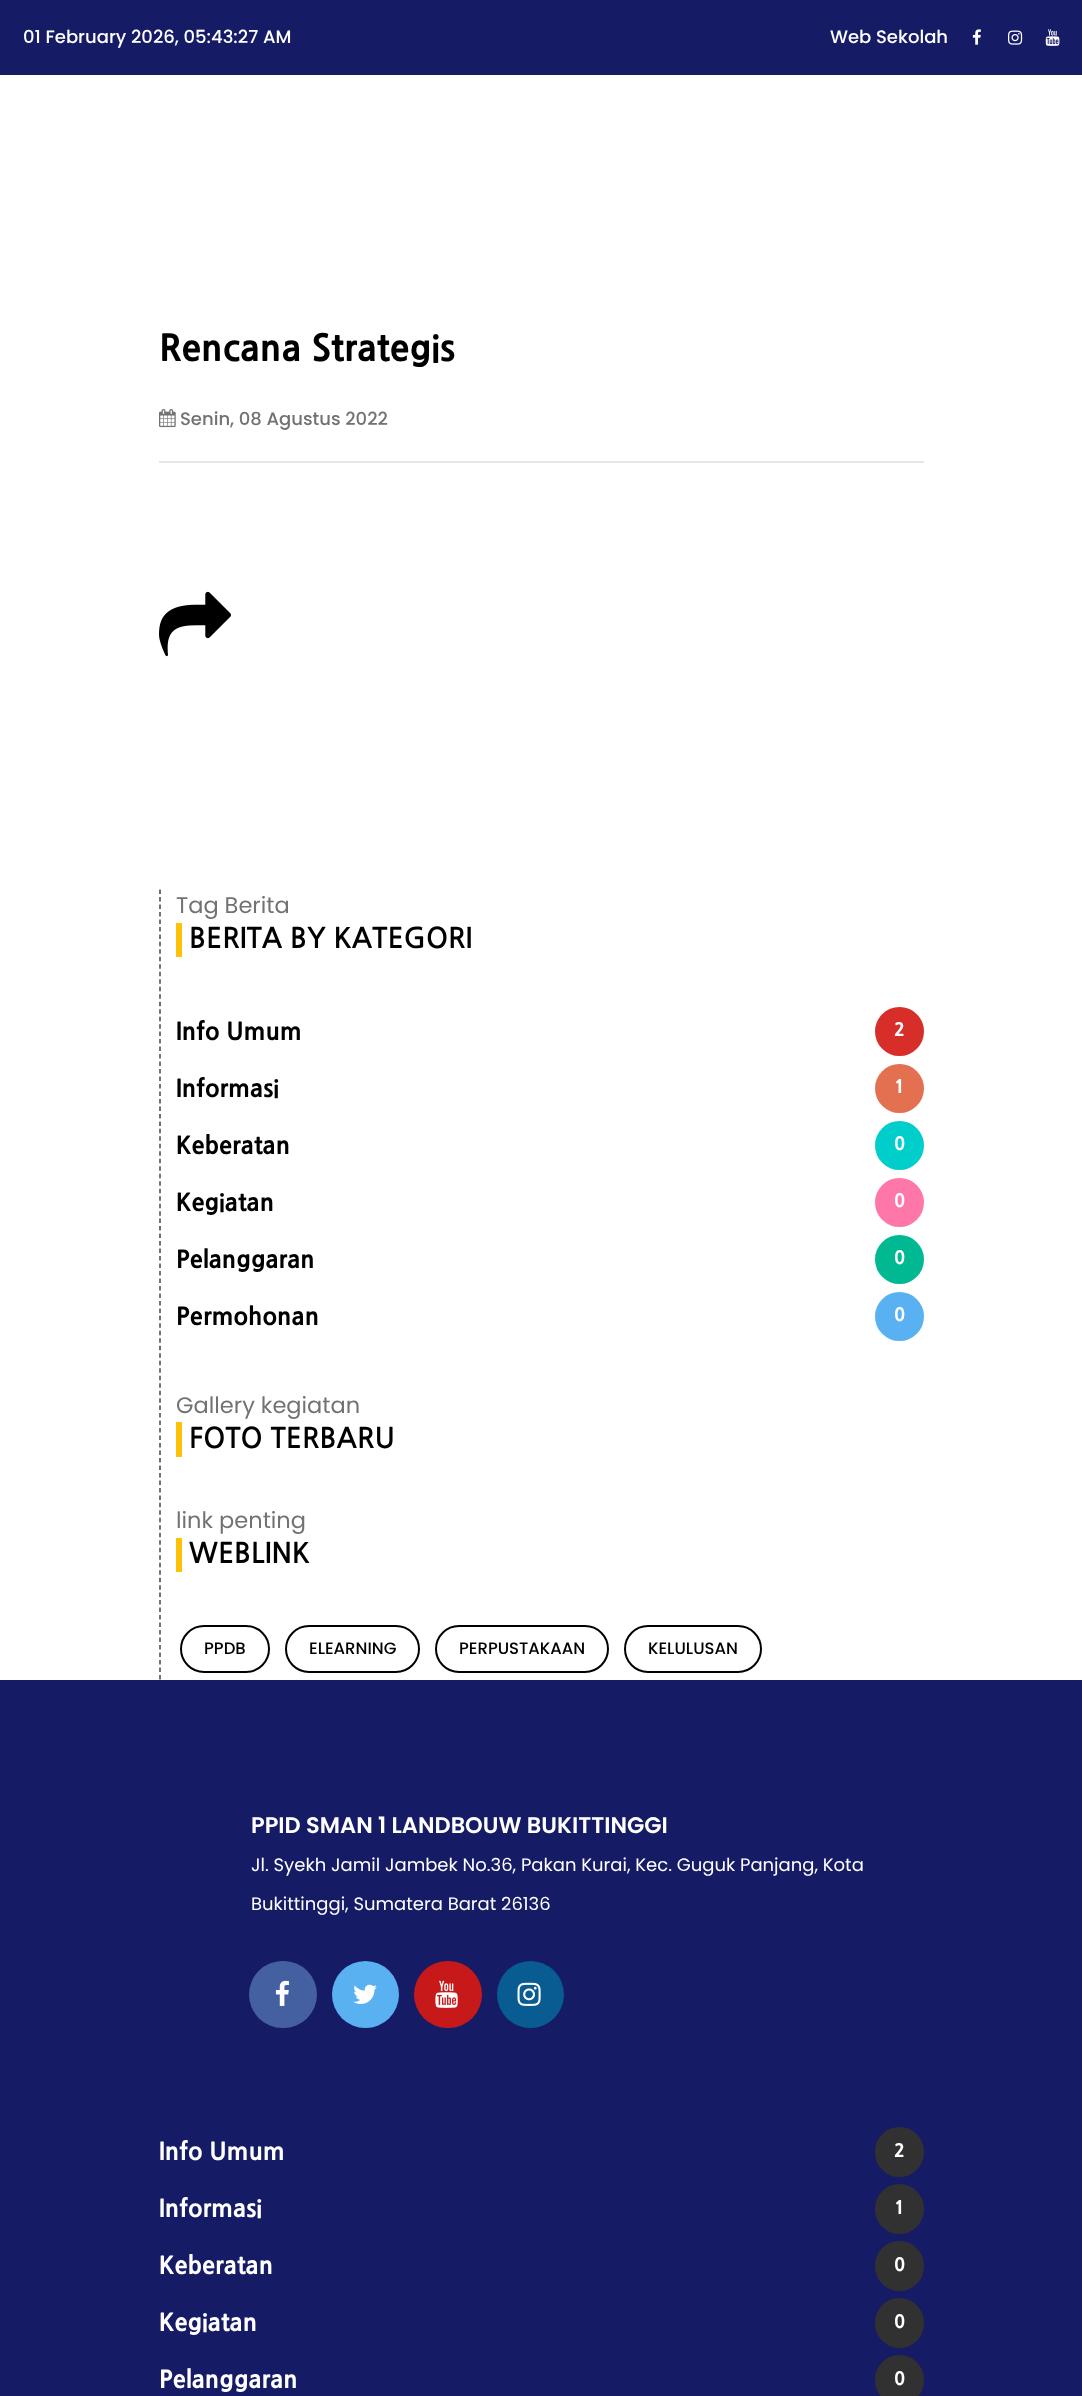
<svg xmlns="http://www.w3.org/2000/svg" width="1082" height="2396" viewBox="0 0 1082 2396">
  <style>
    .t1 { font: 500 18px Poppins; fill: #fff; }
    .t2 { font: 800 36px NanumGothic; fill: #000; }
    .t3 { font: 500 18px Poppins; fill: #727272; }
    .t4 { font: 22.5px Poppins; fill: #727272; }
    .t5 { font: bold 28.1px NanumGothic; fill: #000; }
    .t6 { font: 800 24px NanumGothic; fill: #000; }
    .t7 { font: 800 18px NanumGothic; fill: #fff; }
    .t8 { font: 500 16.5px Poppins; fill: #000; }
    .t9 { font: 600 22.5px Poppins; fill: #fff; }
    .t10 { font: 18px Poppins; fill: #fff; }
    .t11 { font: 800 24px NanumGothic; fill: #fff; }
  </style>
  <rect width="100%" height="100%" fill="#fff"/>
  <rect x="0" y="0" width="1082" height="75" fill="#161b66"/>
  <text x="23" y="43" class="t1">01 February 2026, 05:43:27 AM</text>
  <text x="830" y="43" class="t1">Web Sekolah</text>
  <image x="972" y="29" width="9" height="16" href="images/1.png"/>
  <image x="1008" y="30" width="15" height="15" href="images/2.png"/>
  <image x="1045" y="29" width="15" height="17" href="images/3.png"/>
  <text x="159" y="361" class="t2">Rencana Strategis</text>
  <image x="159" y="409" width="17" height="19" href="images/4.png"/>
  <text x="180" y="425" class="t3">Senin, 08 Agustus 2022</text>
  <rect x="159" y="461" width="765" height="2" fill="#e6e6e6"/>
  <image x="159" y="591" width="72" height="66" href="images/5.png"/>
  <path d="M160 889.5V1680" fill="none" stroke="#454545" stroke-width="1.5" stroke-dasharray="4.5 2.98"/>
  <text x="176" y="913" class="t4">Tag Berita</text>
  <rect x="176" y="923" width="6" height="34" fill="#ffc107"/>
  <text x="189" y="948" class="t5">BERITA BY KATEGORI</text>
  <text x="176" y="1040" class="t6">Info Umum</text>
  <circle cx="899.5" cy="1031.5" r="24.5" fill="#d82e2a"/>
  <text x="894" y="1036" class="t7">2</text>
  <text x="176" y="1097" class="t6">Informasi</text>
  <circle cx="899.5" cy="1088.5" r="24.5" fill="#e37050"/>
  <text x="894" y="1093" class="t7">1</text>
  <text x="176" y="1154" class="t6">Keberatan</text>
  <circle cx="899.5" cy="1145.5" r="24.5" fill="#00ceca"/>
  <text x="894" y="1150" class="t7">0</text>
  <text x="176" y="1211" class="t6">Kegiatan</text>
  <circle cx="899.5" cy="1202.5" r="24.5" fill="#ff77a8"/>
  <text x="894" y="1207" class="t7">0</text>
  <text x="176" y="1268" class="t6">Pelanggaran</text>
  <circle cx="899.5" cy="1259.5" r="24.5" fill="#00b993"/>
  <text x="894" y="1264" class="t7">0</text>
  <text x="176" y="1325" class="t6">Permohonan</text>
  <circle cx="899.5" cy="1316.5" r="24.5" fill="#5ab1f1"/>
  <text x="894" y="1321" class="t7">0</text>
  <text x="176" y="1413" class="t4">Gallery kegiatan</text>
  <rect x="176" y="1422" width="6" height="35" fill="#ffc107"/>
  <text x="189" y="1448" class="t5">FOTO TERBARU</text>
  <text x="176" y="1528" class="t4">link penting</text>
  <rect x="176" y="1538" width="6" height="34" fill="#ffc107"/>
  <text x="189" y="1563" class="t5">WEBLINK</text>
  <rect x="181" y="1626" width="88" height="46" rx="23" fill="none" stroke="#000" stroke-width="2"/>
  <text x="204" y="1654" class="t8">PPDB</text>
  <rect x="286" y="1626" width="133" height="46" rx="23" fill="none" stroke="#000" stroke-width="2"/>
  <text x="309" y="1654" class="t8">ELEARNING</text>
  <rect x="436" y="1626" width="172" height="46" rx="23" fill="none" stroke="#000" stroke-width="2"/>
  <text x="459" y="1654" class="t8">PERPUSTAKAAN</text>
  <rect x="625" y="1626" width="136" height="46" rx="23" fill="none" stroke="#000" stroke-width="2"/>
  <text x="648" y="1654" class="t8">KELULUSAN</text>
  <rect x="0" y="1680" width="1082" height="716" fill="#161b66"/>
  <text x="251" y="1833" class="t9">PPID SMAN 1 LANDBOUW BUKITTINGGI</text>
  <text x="251" y="1871" class="t10">Jl. Syekh Jamil Jambek No.36, Pakan Kurai, Kec. Guguk Panjang, Kota</text>
  <text x="251" y="1910" class="t10">Bukittinggi, Sumatera Barat 26136</text>
  <rect x="249" y="1961" width="68" height="67" rx="33.5" fill="#4460a1"/>
  <image x="275" y="1980" width="14" height="26" href="images/6.png"/>
  <circle cx="365.5" cy="1994.5" r="33.5" fill="#5ab1f1"/>
  <image x="353" y="1984" width="24" height="20" href="images/7.png"/>
  <rect x="414" y="1961" width="68" height="67" rx="33.5" fill="#c8191a"/>
  <image x="435" y="1980" width="23" height="28" href="images/8.png"/>
  <circle cx="530.5" cy="1994.5" r="33.5" fill="#095c91"/>
  <image x="517" y="1982" width="24" height="24" href="images/9.png"/>
  <text x="159" y="2160" class="t11">Info Umum</text>
  <rect x="875" y="2127" width="49" height="50" rx="24.5" fill="#313131"/>
  <text x="894" y="2157" class="t7">2</text>
  <text x="159" y="2217" class="t11">Informasi</text>
  <rect x="875" y="2184" width="49" height="50" rx="24.5" fill="#313131"/>
  <text x="894" y="2214" class="t7">1</text>
  <text x="159" y="2274" class="t11">Keberatan</text>
  <rect x="875" y="2241" width="49" height="50" rx="24.5" fill="#313131"/>
  <text x="894" y="2271" class="t7">0</text>
  <text x="159" y="2331" class="t11">Kegiatan</text>
  <rect x="875" y="2298" width="49" height="50" rx="24.5" fill="#313131"/>
  <text x="894" y="2328" class="t7">0</text>
  <text x="159" y="2388" class="t11">Pelanggaran</text>
  <rect x="875" y="2355" width="49" height="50" rx="24.5" fill="#313131"/>
  <text x="894" y="2385" class="t7">0</text>
</svg>
